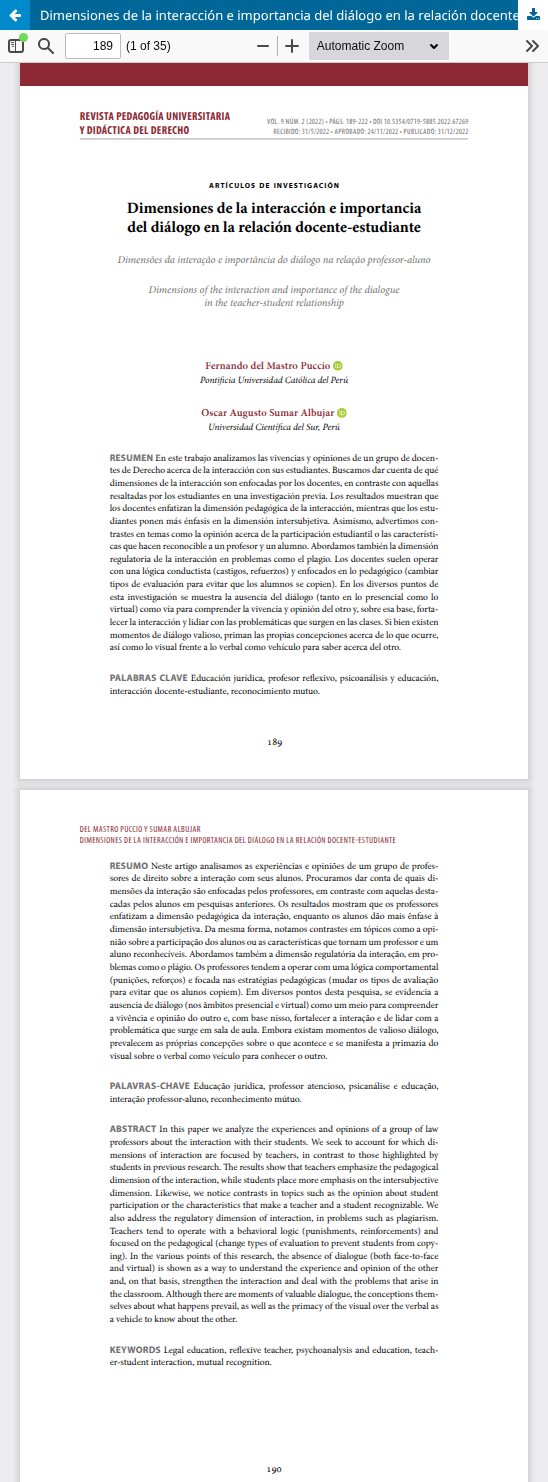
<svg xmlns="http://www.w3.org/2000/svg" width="548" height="1482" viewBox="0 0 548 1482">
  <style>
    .t1 { font: 13px Noto Sans; fill: #fff; }
  </style>
  <rect width="100%" height="100%" fill="#fff"/>
  <rect x="30" y="0" width="488" height="30" fill="#006798"/>
  <rect x="0" y="0" width="30" height="30" fill="#008acb"/>
  <image x="9" y="9" width="12" height="13" href="images/1.png"/>
  <text x="40" y="20" class="t1">Dimensiones de la interacción e importancia del diálogo en la relación docente</text>
  <image x="527" y="8" width="13" height="12" href="images/2.png"/>
  <image x="0" y="30" width="548" height="1452" href="images/3.png"/>
</svg>
